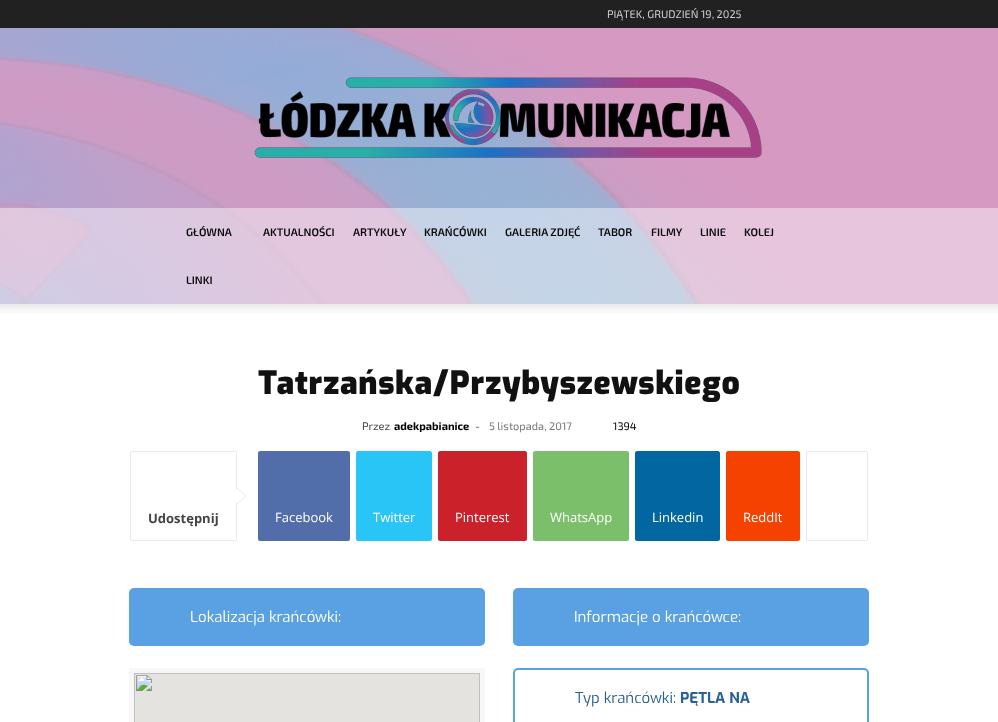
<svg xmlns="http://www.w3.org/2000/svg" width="998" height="722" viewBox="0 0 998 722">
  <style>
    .t1 { font: 11px 'Exo 2'; fill: #cecece; }
    .t2 { font: 600 11px 'Exo 2'; fill: #0a0a0a; }
    .t3 { font: 900 32px Exo; letter-spacing: 0.65px; fill: #111; }
    .t4 { font: 11px 'Exo 2'; fill: #444; }
    .t5 { font: bold 11px 'Exo 2'; fill: #000; }
    .t6 { font: 11px 'Exo 2'; fill: #767676; }
    .t7 { font: 11px 'Exo 2'; fill: #000; }
    .t8 { font: bold 13px Open Sans; fill: #444; }
    .t9 { font: 13px Open Sans; fill: #fff; }
    .t10 { font: 15px Exo; fill: #fff; }
    .t11 { font: 15px Exo; fill: #2a6194; }
    .t12 { font: bold 15px Exo; fill: #2a6194; }
  </style>
  <rect width="100%" height="100%" fill="#fff"/>
  <image x="0" y="28" width="998" height="276" href="images/1.png"/>
  <rect x="0" y="0" width="998" height="28" fill="#212121"/>
  <text x="607" y="18" class="t1">PIĄTEK, GRUDZIEŃ 19, 2025</text>
  <rect x="0" y="28" width="998" height="180" fill="#ffffff73"/>
  <image x="254" y="77" width="508" height="81" href="images/2.png"/>
  <rect x="0" y="208" width="998" height="96" fill="#ffffffb0"/>
  <text x="186" y="236" class="t2">GŁÓWNA</text>
  <text x="263" y="236" class="t2">AKTUALNOŚCI</text>
  <text x="353" y="236" class="t2">ARTYKUŁY</text>
  <text x="424" y="236" class="t2">KRAŃCÓWKI</text>
  <text x="505" y="236" class="t2">GALERIA ZDJĘĆ</text>
  <text x="598" y="236" class="t2">TABOR</text>
  <text x="651" y="236" class="t2">FILMY</text>
  <text x="700" y="236" class="t2">LINIE</text>
  <text x="744" y="236" class="t2">KOLEJ</text>
  <text x="186" y="284" class="t2">LINKI</text>
  <image x="0" y="304" width="998" height="9" href="images/3.png"/>
  <text x="258" y="394" class="t3">Tatrzańska/Przybyszewskiego</text>
  <text x="362" y="430" class="t4">Przez</text>
  <text x="394" y="430" class="t5">adekpabianice</text>
  <text x="475" y="430" class="t4">-</text>
  <text x="489" y="430" class="t6">5 listopada, 2017</text>
  <text x="613" y="430" class="t7">1394</text>
  <rect x="130.5" y="451.5" width="106" height="89" rx="1.5" fill="none" stroke="#e9e9e9"/>
  <path d="M236 505V487L247 496Z" fill="#e9e9e9"/>
  <path d="M236 504V488L246 496Z" fill="#fff"/>
  <text x="148" y="523" class="t8">Udostępnij</text>
  <path d="M260 451H348C349 451 350 452 350 453V511H258V453C258 452 259 451 260 451Z" fill="#516eab"/>
  <path d="M258 511H350V539C350 540 349 541 348 541H260C259 541 258 540 258 539Z" fill="#516eab"/>
  <text x="275" y="522" class="t9">Facebook</text>
  <path d="M358 451H430C431 451 432 452 432 453V511H356V453C356 452 357 451 358 451Z" fill="#29c5f6"/>
  <path d="M356 511H432V539C432 540 431 541 430 541H358C357 541 356 540 356 539Z" fill="#29c5f6"/>
  <text x="373" y="522" class="t9">Twitter</text>
  <path d="M440 451H525C526 451 527 452 527 453V511H438V453C438 452 439 451 440 451Z" fill="#ca212a"/>
  <path d="M438 511H527V539C527 540 526 541 525 541H440C439 541 438 540 438 539Z" fill="#ca212a"/>
  <text x="455" y="522" class="t9">Pinterest</text>
  <path d="M535 451H627C628 451 629 452 629 453V511H533V453C533 452 534 451 535 451Z" fill="#7bbf6a"/>
  <path d="M533 511H629V539C629 540 628 541 627 541H535C534 541 533 540 533 539Z" fill="#7bbf6a"/>
  <text x="550" y="522" class="t9">WhatsApp</text>
  <path d="M637 451H718C719 451 720 452 720 453V511H635V453C635 452 636 451 637 451Z" fill="#0266a0"/>
  <path d="M635 511H720V539C720 540 719 541 718 541H637C636 541 635 540 635 539Z" fill="#0266a0"/>
  <text x="652" y="522" class="t9">Linkedin</text>
  <path d="M728 451H798C799 451 800 452 800 453V511H726V453C726 452 727 451 728 451Z" fill="#f54200"/>
  <path d="M726 511H800V539C800 540 799 541 798 541H728C727 541 726 540 726 539Z" fill="#f54200"/>
  <text x="743" y="522" class="t9">ReddIt</text>
  <rect x="806.5" y="451.5" width="61" height="89" rx="1.5" fill="none" stroke="#e9e9e9"/>
  <rect x="129" y="588" width="356" height="58" rx="5" fill="#5aa1e3"/>
  <text x="190" y="622" class="t10">Lokalizacja krańcówki:</text>
  <rect x="129" y="668" width="356" height="54" fill="#f7f7f7"/>
  <image x="134" y="673" width="346" height="49" href="images/4.png"/>
  <rect x="513" y="588" width="356" height="58" rx="5" fill="#5aa1e3"/>
  <text x="574" y="622" class="t10">Informacje o krańcówce:</text>
  <rect x="514" y="669" width="354" height="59" rx="4" fill="none" stroke="#5aa1e3" stroke-width="2"/>
  <text x="575" y="703" class="t11">Typ krańcówki:</text>
  <text x="680" y="703" class="t12">PĘTLA NA</text>
</svg>
